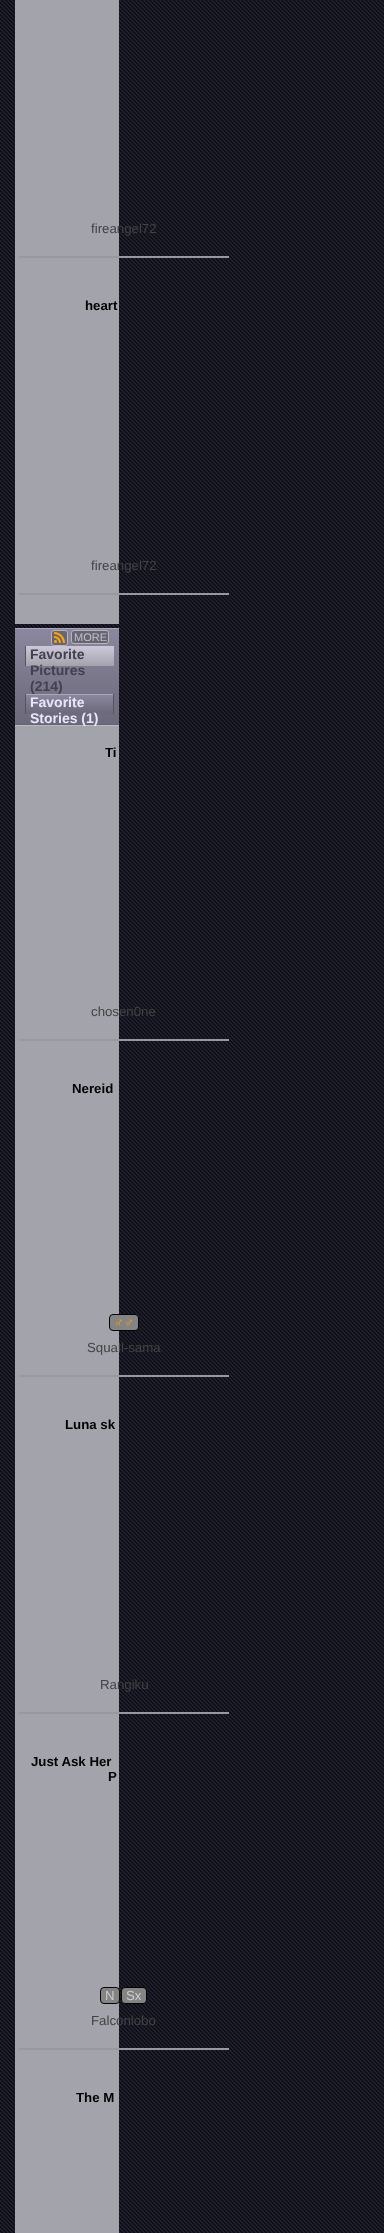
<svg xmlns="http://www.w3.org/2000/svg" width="384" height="2233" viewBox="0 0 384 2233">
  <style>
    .t1 { font: 13.25px Liberation Sans; fill: #424242; }
    .t2 { font: bold 13.25px Liberation Sans; fill: #000; }
    .t3 { font: 11px Liberation Sans; fill: #c2c1c6; }
    .t4 { font: bold 14px Liberation Sans; fill: #42404e; }
    .t5 { font: bold 14px Liberation Sans; fill: #eae5fc; }
    .t6 { font: 13.25px Liberation Sans; fill: #fca404; }
    .t7 { font: 13.25px Liberation Sans; fill: #ccc; }
  </style>
  <defs>
    <linearGradient id="g1" gradientUnits="userSpaceOnUse" x1="67" y1="628" x2="67" y2="726"><stop offset="0.01" stop-color="#8b879e"/><stop offset="1" stop-color="#6b6879"/></linearGradient>
    <linearGradient id="g2" gradientUnits="userSpaceOnUse" x1="70" y1="646" x2="70" y2="666"><stop offset="0" stop-color="#ccc8da"/><stop offset="1" stop-color="#a3a3ab"/></linearGradient>
    <linearGradient id="g3" gradientUnits="userSpaceOnUse" x1="70" y1="694" x2="70" y2="714"><stop offset="0.01" stop-color="#8b879e"/><stop offset="1" stop-color="#6b6879"/></linearGradient>
  </defs>
  <rect width="100%" height="100%" fill="#fff"/>
  <image x="0" y="0" width="384" height="2233" href="images/1.png"/>
  <rect x="15" y="0" width="104" height="624" fill="#a3a3ab"/>
  <rect x="19" y="256" width="210" height="2" fill="#9799a2"/>
  <text x="91" y="233" class="t1">fireangel72</text>
  <rect x="19" y="593" width="210" height="2" fill="#9799a2"/>
  <text x="85" y="310" class="t2">heart</text>
  <text x="91" y="570" class="t1">fireangel72</text>
  <rect x="15" y="629" width="104" height="95" fill="url(#g1)"/>
  <rect x="15" y="628" width="104" height="1" fill="#aaa6c0"/>
  <rect x="15" y="724" width="104" height="1" fill="#666376"/>
  <rect x="15" y="725" width="104" height="1" fill="#bab9be"/>
  <rect x="51.5" y="630.5" width="16" height="15" rx="2.5" fill="#676573" stroke="#b7b6bb"/>
  <image x="54" y="632" width="11" height="11" href="images/2.png"/>
  <rect x="71.5" y="630.5" width="37" height="13" rx="2.5" fill="#676573" stroke="#b7b6bb"/>
  <text x="74" y="641" class="t3">MORE</text>
  <rect x="26" y="646" width="88" height="20" fill="url(#g2)"/>
  <rect x="25" y="646" width="1" height="20" fill="#565462"/>
  <text x="30" y="659" class="t4">Favorite</text>
  <text x="30" y="675" class="t4">Pictures</text>
  <text x="30" y="691" class="t4">(214)</text>
  <rect x="26" y="695" width="87" height="19" fill="url(#g3)"/>
  <rect x="26" y="694" width="87" height="1" fill="#aaa6c0"/>
  <rect x="113" y="694" width="1" height="20" fill="#565462"/>
  <rect x="25" y="694" width="1" height="20" fill="#565462"/>
  <text x="30" y="707" class="t5">Favorite</text>
  <text x="30" y="723" class="t5">Stories (1)</text>
  <rect x="15" y="726" width="104" height="1507" fill="#a3a3ab"/>
  <rect x="19" y="1039" width="210" height="2" fill="#9799a2"/>
  <text x="105" y="757" class="t2">Ti</text>
  <text x="91" y="1016" class="t1">chosen0ne</text>
  <rect x="19" y="1375" width="210" height="2" fill="#9799a2"/>
  <text x="72" y="1093" class="t2">Nereid</text>
  <rect x="109.5" y="1314.5" width="29" height="16" rx="3.5" fill="#848484" stroke="#040404"/>
  <text x="114" y="1327" class="t6">♂♂</text>
  <text x="87" y="1352" class="t1">Squall-sama</text>
  <rect x="19" y="1712" width="210" height="2" fill="#9799a2"/>
  <text x="65" y="1429" class="t2">Luna sk</text>
  <text x="100" y="1689" class="t1">Rangiku</text>
  <rect x="19" y="2048" width="210" height="2" fill="#9799a2"/>
  <text x="31" y="1766" class="t2">Just Ask Her</text>
  <text x="108" y="1781" class="t2">P</text>
  <rect x="100.5" y="1987.5" width="19" height="16" rx="3.5" fill="#848484" stroke="#040404"/>
  <text x="105" y="2000" class="t7">N</text>
  <rect x="121.5" y="1987.5" width="25" height="16" rx="3.5" fill="#848484" stroke="#040404"/>
  <text x="126" y="2000" class="t7">Sx</text>
  <text x="91" y="2025" class="t1">Falconlobo</text>
  <text x="76" y="2102" class="t2">The M</text>
</svg>
